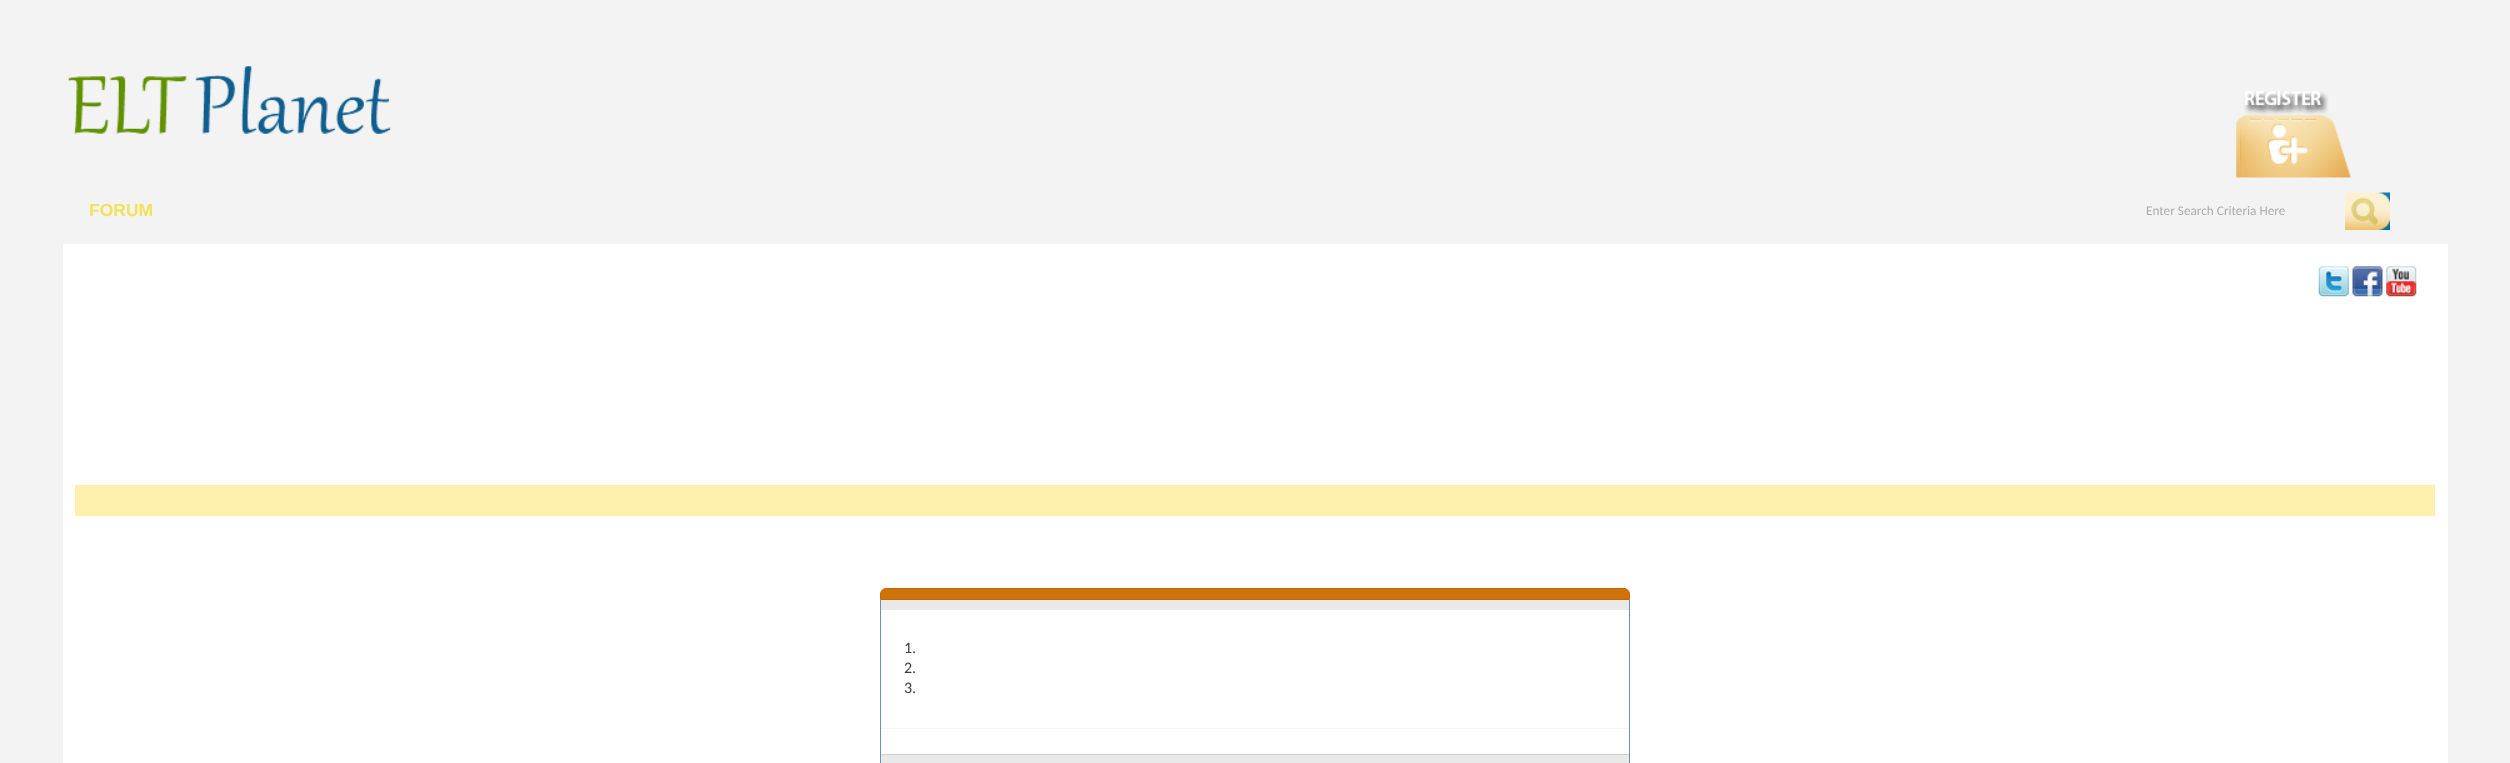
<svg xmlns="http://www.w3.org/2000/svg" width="2510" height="763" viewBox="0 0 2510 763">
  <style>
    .t1 { font: bold 17.5px Liberation Sans; fill: #f4e15b; }
    .t2 { font: 13.25px Carlito; fill: #acacac; }
    .t3 { font: 16px Carlito; fill: #3e3e3e; }
  </style>
  <rect width="100%" height="100%" fill="#f3f3f3"/>
  <image x="68" y="66" width="324" height="68" href="images/1.png"/>
  <image x="2236" y="91" width="116" height="87" href="images/2.png"/>
  <text x="89" y="216" class="t1">FORUM</text>
  <text x="2146" y="215" class="t2">Enter Search Criteria Here</text>
  <image x="2345" y="192" width="45" height="38" href="images/3.png"/>
  <rect x="63" y="244" width="2385" height="519" fill="#fff"/>
  <image x="2318" y="266" width="31" height="31" href="images/4.png"/>
  <image x="2352" y="266" width="31" height="31" href="images/5.png"/>
  <image x="2386" y="266" width="31" height="31" href="images/6.png"/>
  <rect x="75" y="485" width="2360" height="31" fill="#fff0ae"/>
  <path d="M886 588.5H1624C1627 588.5 1629.5 591 1629.5 594V599.5H880.5V594C880.5 591 883 588.5 886 588.5Z" fill="#ce720b" stroke="#ca6600"/>
  <rect x="1629" y="600" width="1" height="163" fill="#6b91ab"/>
  <rect x="880" y="600" width="1" height="163" fill="#6b91ab"/>
  <rect x="881" y="600" width="748" height="10" fill="#e9e9e9"/>
  <text x="904" y="653" class="t3">1.</text>
  <text x="904" y="673" class="t3">2.</text>
  <text x="904" y="693" class="t3">3.</text>
  <rect x="881" y="728" width="748" height="1" fill="#f6f6f6"/>
  <rect x="881" y="755" width="748" height="8" fill="#e9e9e9"/>
  <rect x="881" y="754" width="748" height="1" fill="#cecece"/>
</svg>
